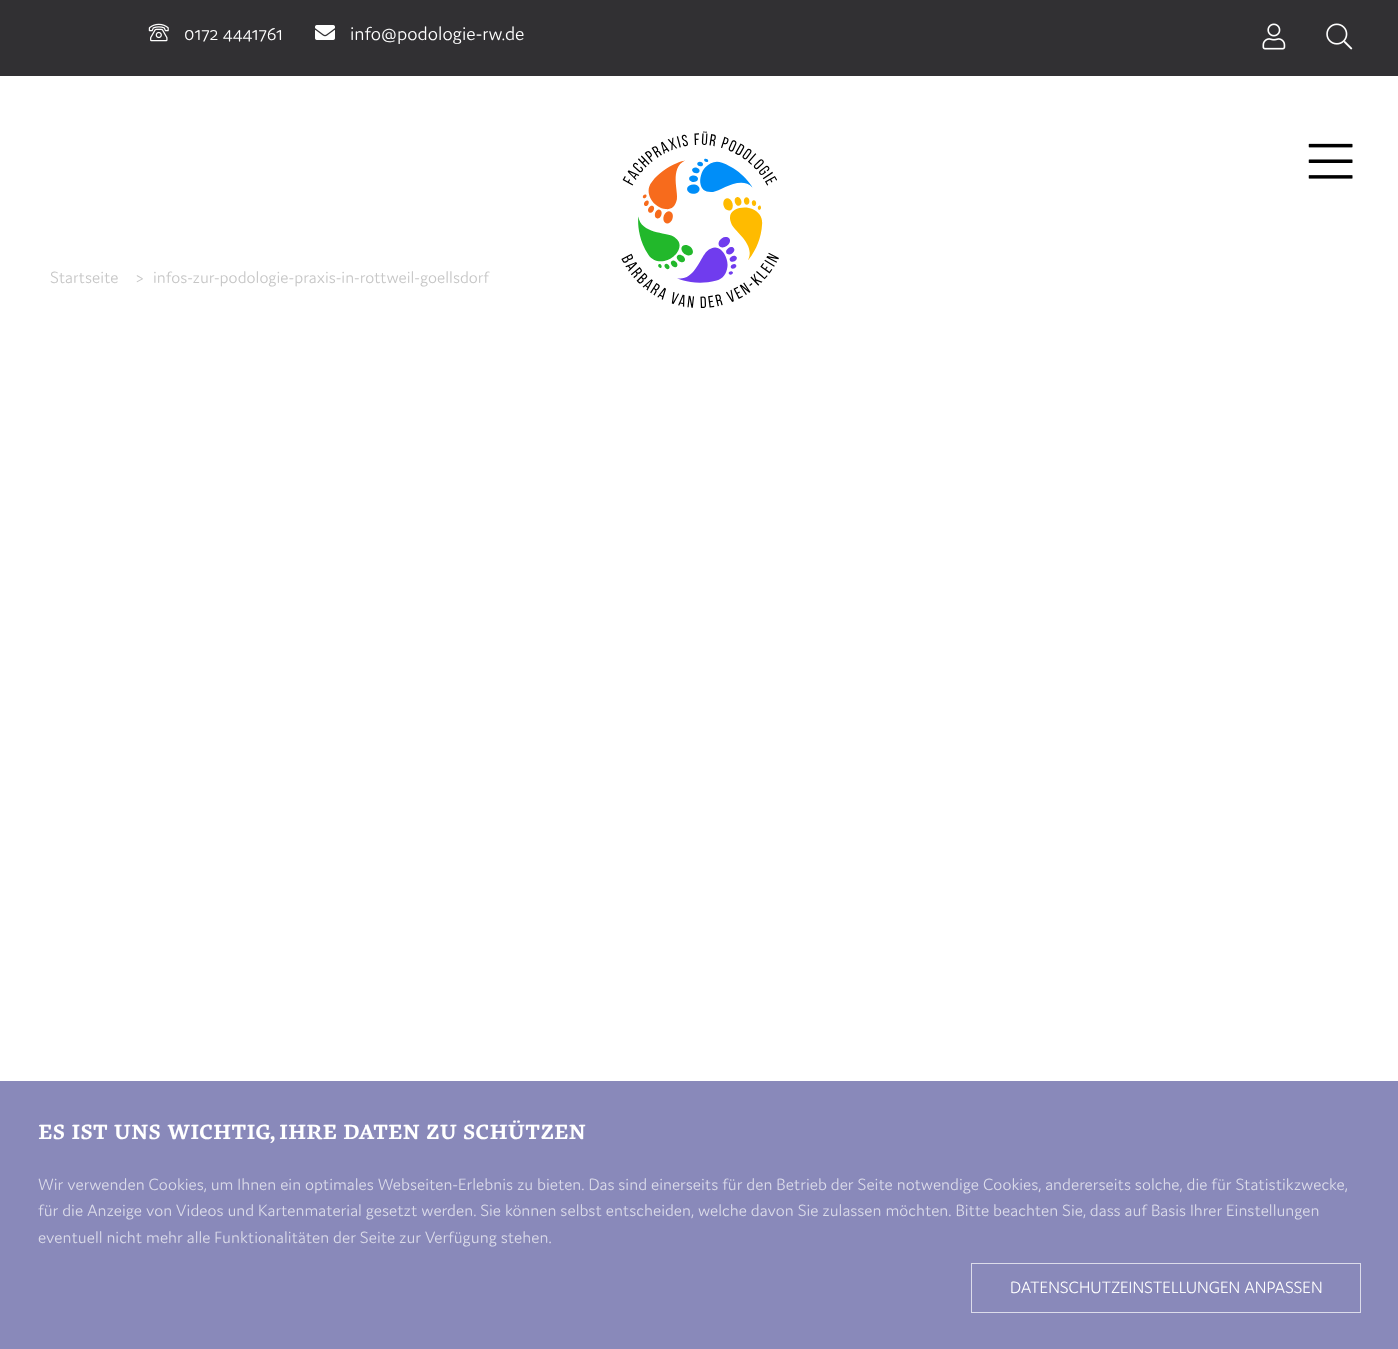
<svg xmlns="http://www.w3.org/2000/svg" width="1398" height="1349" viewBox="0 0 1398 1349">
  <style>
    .t1 { font: 20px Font; fill: #fff; }
    .t2 { font: 17.5px Font; fill: #c6c6c6; }
    .t3 { font: bold 21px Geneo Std; fill: #fff; }
    .t4 { font: 17.5px Font; fill: #dcdcea; }
    .t5 { font: 17.5px Font; fill: #fff; }
  </style>
  <rect width="100%" height="100%" fill="#fff"/>
  <rect x="0" y="0" width="1398" height="76" fill="#313033"/>
  <image x="148" y="23" width="21" height="19" href="images/1.png"/>
  <text x="184" y="40" class="t1">0172 4441761</text>
  <image x="315" y="25" width="20" height="15" href="images/2.png"/>
  <text x="350" y="40" class="t1">info@podologie-rw.de</text>
  <image x="1262" y="23" width="24" height="27" href="images/3.png"/>
  <image x="1326" y="23" width="27" height="27" href="images/4.png"/>
  <text x="50" y="283" class="t2">Startseite</text>
  <text x="135" y="283" class="t2">&gt;</text>
  <text x="153" y="283" class="t2">infos-zur-podologie-praxis-in-rottweil-goellsdorf</text>
  <image x="621" y="131" width="158" height="177" href="images/5.png"/>
  <image x="1308" y="143" width="45" height="36" href="images/6.png"/>
  <rect x="0" y="1081" width="1398" height="268" fill="#8989ba"/>
  <text x="38" y="1139" class="t3">ES IST UNS WICHTIG, IHRE DATEN ZU SCHÜTZEN</text>
  <text x="38" y="1190" class="t4">Wir verwenden Cookies, um Ihnen ein optimales Webseiten-Erlebnis zu bieten. Das sind einerseits für den Betrieb der Seite notwendige Cookies, andererseits solche, die für Statistikzwecke,</text>
  <text x="38" y="1216" class="t4">für die Anzeige von Videos und Kartenmaterial gesetzt werden. Sie können selbst entscheiden, welche davon Sie zulassen möchten. Bitte beachten Sie, dass auf Basis Ihrer Einstellungen</text>
  <text x="38" y="1243" class="t4">eventuell nicht mehr alle Funktionalitäten der Seite zur Verfügung stehen.</text>
  <rect x="971.5" y="1263.5" width="389" height="49" fill="none" stroke="#dcdcea"/>
  <text x="1010" y="1293" class="t5">DATENSCHUTZEINSTELLUNGEN ANPASSEN</text>
</svg>
